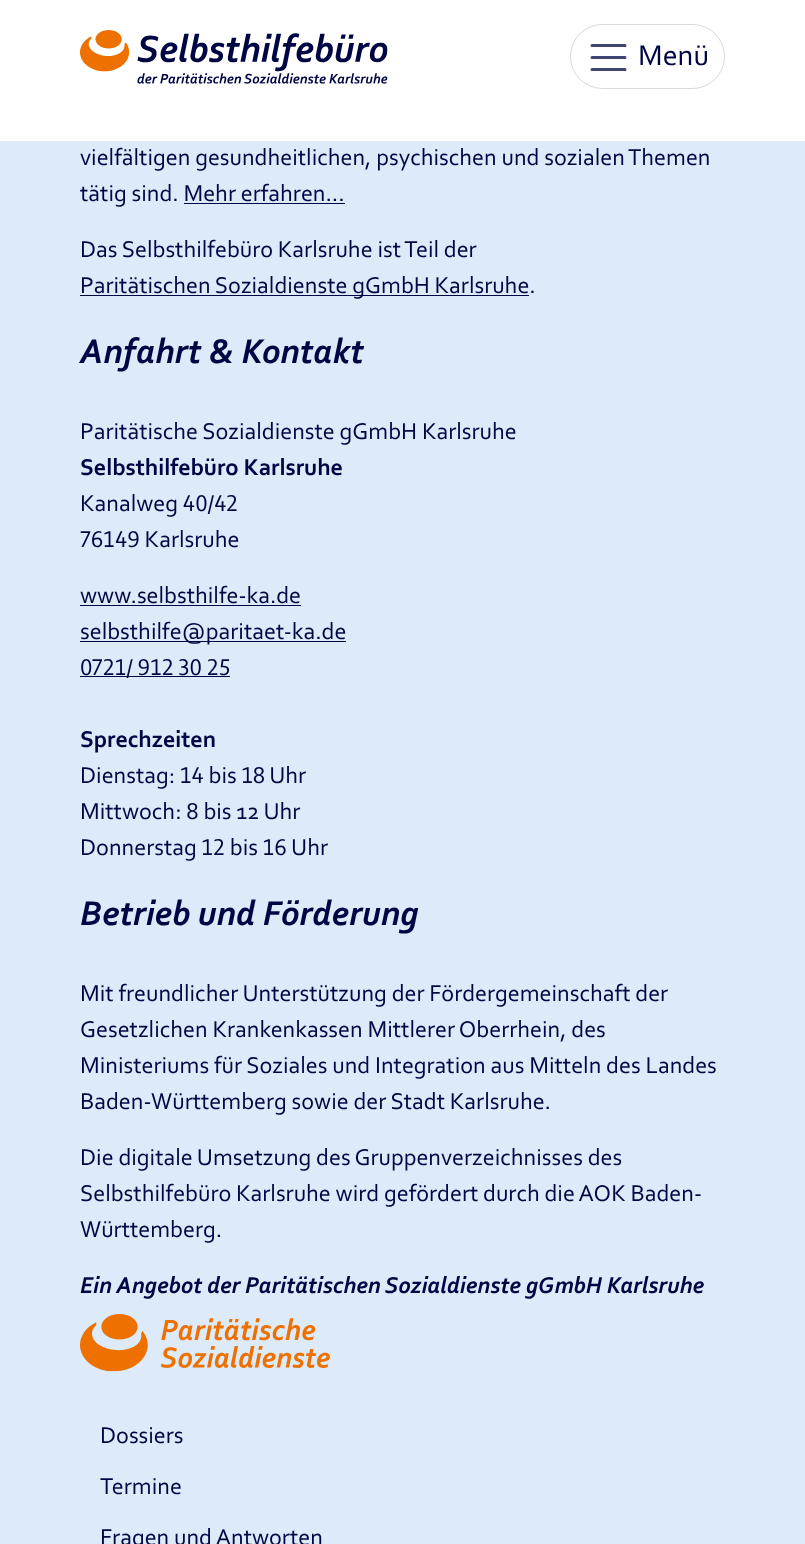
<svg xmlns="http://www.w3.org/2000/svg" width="805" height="1544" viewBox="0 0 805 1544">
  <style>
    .t1 { font: 30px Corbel; fill: #000644; }
    .t2 { font: 24px Corbel; fill: #000644; }
    .t3 { font: italic bold 36px Corbel; fill: #000644; }
    .t4 { font: bold 24px Corbel; fill: #000644; }
    .t5 { font: 24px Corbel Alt; fill: #000644; }
    .t6 { font: italic bold 24px Corbel; fill: #000644; }
  </style>
  <rect width="100%" height="100%" fill="#dceaf9"/>
  <rect x="0" y="0" width="805" height="141" fill="#fff"/>
  <image x="80" y="30" width="308" height="54" href="images/1.png"/>
  <rect x="570.5" y="24.5" width="154" height="64" rx="32" fill="none" stroke="#d9d9d9"/>
  <path d="M592 45.5H625M592 57.5H625M592 69.5H625" fill="none" stroke="#404473" stroke-width="3" stroke-linecap="round"/>
  <text x="638" y="65" class="t1">Menü</text>
  <text x="80" y="165" class="t2">vielfältigen gesundheitlichen, psychischen und sozialen Themen</text>
  <text x="80" y="201" class="t2">tätig sind. Mehr erfahren...</text>
  <rect x="184" y="203" width="161" height="1" fill="#000644"/>
  <text x="80" y="257" class="t2">Das Selbsthilfebüro Karlsruhe ist Teil der</text>
  <rect x="80" y="295" width="449" height="1" fill="#000644"/>
  <text x="80" y="293" class="t2">Paritätischen Sozialdienste gGmbH Karlsruhe.</text>
  <text x="80" y="363" class="t3">Anfahrt &amp; Kontakt</text>
  <text x="80" y="439" class="t2">Paritätische Sozialdienste gGmbH Karlsruhe</text>
  <text x="80" y="475" class="t4">Selbsthilfebüro Karlsruhe</text>
  <text x="80" y="511" class="t5">Kanalweg 40/42</text>
  <text x="80" y="547" class="t5">76149 Karlsruhe</text>
  <text x="80" y="603" class="t2">www.selbsthilfe-ka.de</text>
  <rect x="80" y="605" width="221" height="1" fill="#000644"/>
  <rect x="80" y="641" width="266" height="1" fill="#000644"/>
  <text x="80" y="639" class="t2">selbsthilfe@paritaet-ka.de</text>
  <rect x="80" y="676" width="150" height="1" fill="#000644"/>
  <text x="80" y="675" class="t5">0721/ 912 30 25</text>
  <text x="80" y="747" class="t4">Sprechzeiten</text>
  <text x="80" y="783" class="t5">Dienstag: 14 bis 18 Uhr</text>
  <text x="80" y="819" class="t2">Mittwoch: 8 bis 12 Uhr</text>
  <text x="80" y="855" class="t5">Donnerstag 12 bis 16 Uhr</text>
  <text x="80" y="925" class="t3">Betrieb und Förderung</text>
  <text x="80" y="1001" class="t2">Mit freundlicher Unterstützung der Fördergemeinschaft der</text>
  <text x="80" y="1037" class="t2">Gesetzlichen Krankenkassen Mittlerer Oberrhein, des</text>
  <text x="80" y="1073" class="t2">Ministeriums für Soziales und Integration aus Mitteln des Landes</text>
  <text x="80" y="1109" class="t2">Baden-Württemberg sowie der Stadt Karlsruhe.</text>
  <text x="80" y="1165" class="t2">Die digitale Umsetzung des Gruppenverzeichnisses des</text>
  <text x="80" y="1201" class="t2">Selbsthilfebüro Karlsruhe wird gefördert durch die AOK Baden-</text>
  <text x="80" y="1237" class="t2">Württemberg.</text>
  <text x="80" y="1293" class="t6">Ein Angebot der Paritätischen Sozialdienste gGmbH Karlsruhe</text>
  <image x="80" y="1314" width="250" height="58" href="images/2.png"/>
  <text x="100" y="1443" class="t2">Dossiers</text>
  <text x="100" y="1494" class="t2">Termine</text>
  <text x="100" y="1545" class="t2">Fragen und Antworten</text>
</svg>
